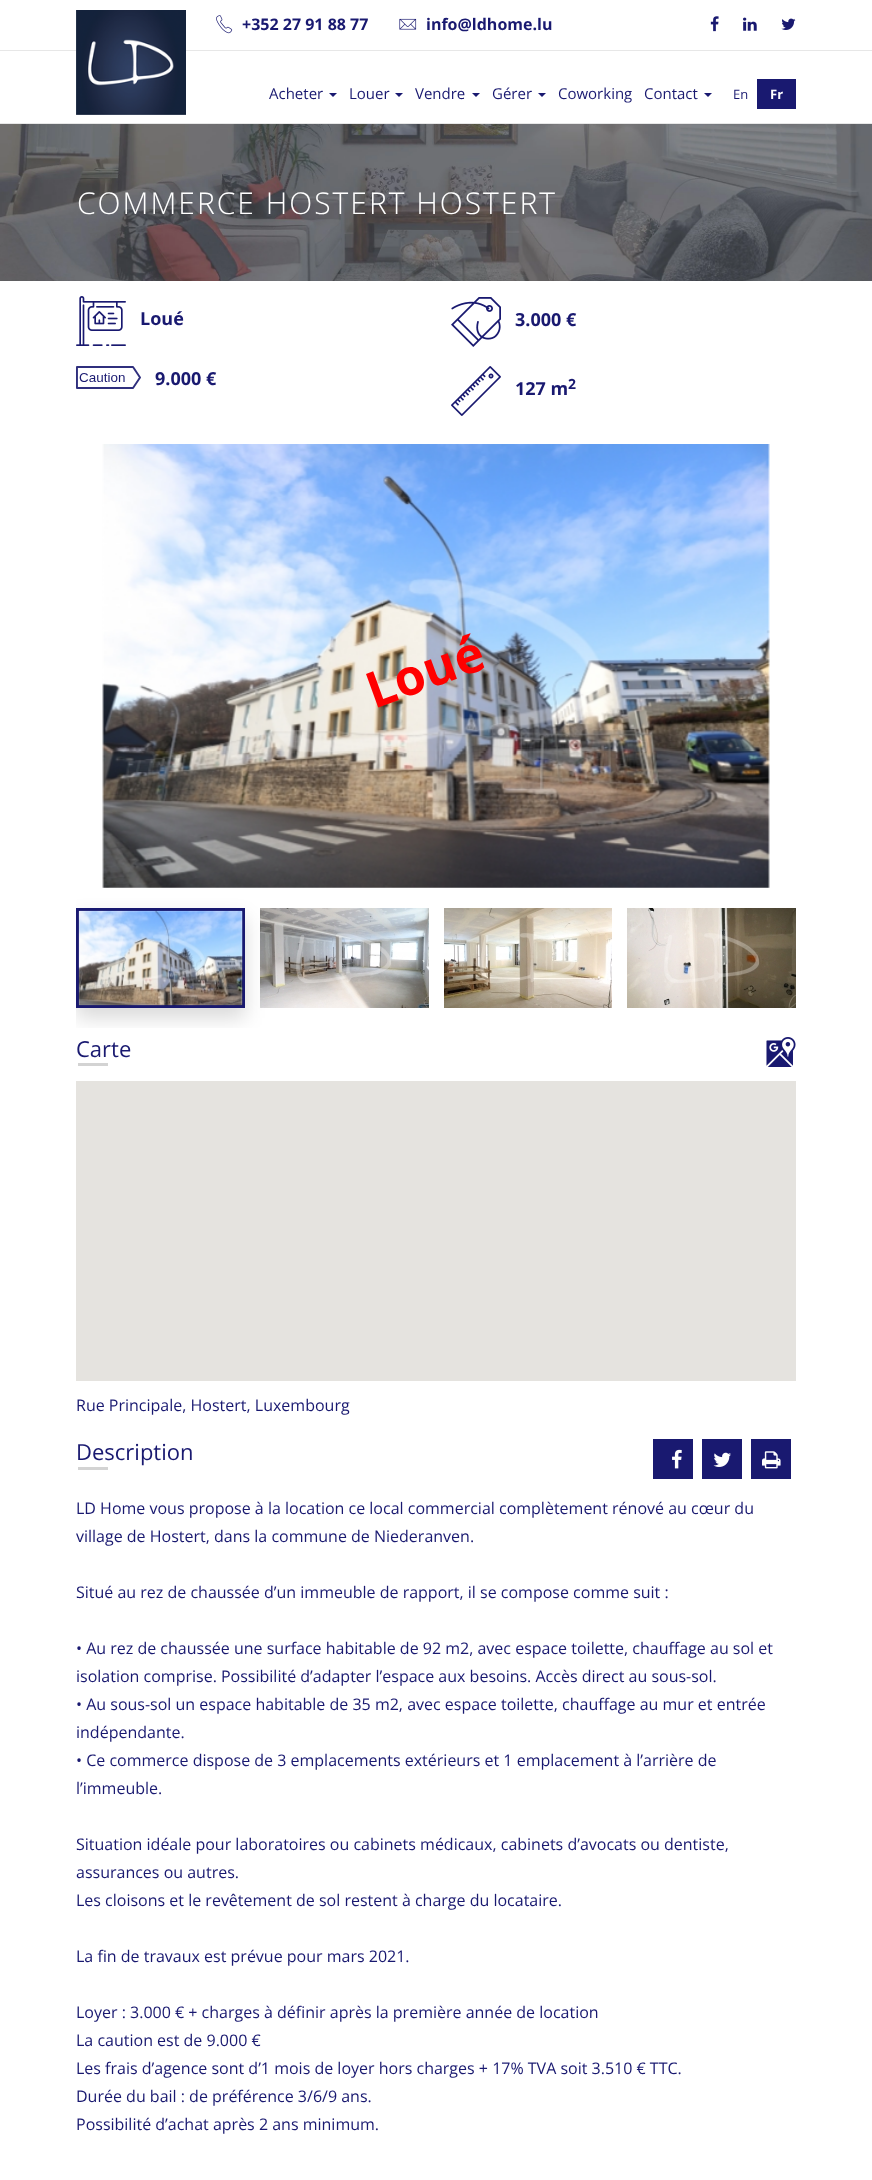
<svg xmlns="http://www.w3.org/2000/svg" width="872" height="2180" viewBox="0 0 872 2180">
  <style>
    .t1 { font: bold 16px Open Sans; fill: #191970; }
    .t2 { font: 15px Open Sans; fill: #191970; }
    .t3 { font: 13px Open Sans; fill: #191970; }
    .t4 { font: bold 13px Open Sans; fill: #fff; }
    .t5 { font: 300 30px Open Sans; letter-spacing: 2px; fill: #fff; }
    .t6 { font: bold 18px Open Sans; fill: #191970; }
    .t7 { font: bold 14px Open Sans; fill: #191970; }
    .t8 { font: bold 50px Open Sans; fill: #f00; }
    .t9 { font: 22px Open Sans; fill: #191970; }
    .t10 { font: 16px Open Sans; fill: #191970; }
  </style>
  <defs>
    <clipPath id="clip1"><rect x="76" y="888" width="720" height="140"/></clipPath>
  </defs>
  <rect width="100%" height="100%" fill="#fff"/>
  <rect x="0" y="50" width="872" height="1" fill="#e7e7e7"/>
  <image x="76" y="10" width="110" height="105" href="images/1.png"/>
  <image x="216" y="15" width="17" height="19" href="images/2.png"/>
  <text x="242" y="30" class="t1">+352 27 91 88 77</text>
  <image x="399" y="18" width="18" height="12" href="images/3.png"/>
  <text x="426" y="30" class="t1">info@ldhome.lu</text>
  <image x="710" y="16" width="9" height="16" href="images/4.png"/>
  <image x="743" y="17" width="14" height="14" href="images/5.png"/>
  <image x="781" y="18" width="15" height="12" href="images/6.png"/>
  <rect x="0" y="123" width="872" height="1" fill="#e7e7e7"/>
  <text x="269" y="99" class="t2">Acheter</text>
  <path d="M329 93H337L333 97Z" fill="#191970"/>
  <text x="349" y="99" class="t2">Louer</text>
  <path d="M395 93H403L399 97Z" fill="#191970"/>
  <text x="415" y="99" class="t2">Vendre</text>
  <path d="M472 93H480L476 97Z" fill="#191970"/>
  <text x="492" y="99" class="t2">Gérer</text>
  <path d="M538 93H546L542 97Z" fill="#191970"/>
  <text x="558" y="99" class="t2">Coworking</text>
  <text x="644" y="99" class="t2">Contact</text>
  <path d="M704 93H712L708 97Z" fill="#191970"/>
  <text x="733" y="99" class="t3">En</text>
  <rect x="757" y="79" width="39" height="30" fill="#191970"/>
  <text x="770" y="99" class="t4">Fr</text>
  <image x="0" y="124" width="872" height="157" href="images/7.png"/>
  <text x="77" y="214" class="t5">COMMERCE HOSTERT HOSTERT</text>
  <image x="76" y="296" width="50" height="50" href="images/8.png"/>
  <text x="140" y="325" class="t6">Loué</text>
  <image x="451" y="297" width="50" height="50" href="images/9.png"/>
  <text x="515" y="326" class="t6">3.000 €</text>
  <image x="76" y="366" width="65" height="23" href="images/10.png"/>
  <text x="155" y="385" class="t6">9.000 €</text>
  <image x="451" y="366" width="50" height="50" href="images/11.png"/>
  <text x="515" y="395" class="t6">127 m</text>
  <text x="568" y="389" class="t7">2</text>
  <image x="102" y="444" width="668" height="444" href="images/12.png"/>
  <text x="374" y="709" transform="rotate(-20 374 709)" class="t8">Loué</text>
  <g clip-path="url(#clip1)">
    <rect x="76" y="918" width="169" height="100" fill="#00000026" filter="blur(10px)"/>
  </g>
  <rect x="77.5" y="909.5" width="166" height="97" fill="none" stroke="#191970" stroke-width="3"/>
  <image x="78" y="910" width="165" height="96" href="images/13.png"/>
  <image x="260" y="908" width="169" height="100" href="images/14.png"/>
  <image x="444" y="908" width="168" height="100" href="images/15.png"/>
  <image x="627" y="908" width="169" height="100" href="images/16.png"/>
  <text x="76" y="1057" class="t9">Carte</text>
  <rect x="78" y="1063" width="30" height="3" fill="#d3d3d3"/>
  <image x="766" y="1037" width="30" height="30" href="images/17.png"/>
  <rect x="76" y="1081" width="720" height="300" fill="#e5e3df"/>
  <text x="76" y="1411" class="t10">Rue Principale, Hostert, Luxembourg</text>
  <text x="76" y="1460" class="t9">Description</text>
  <rect x="78" y="1467" width="30" height="3" fill="#d3d3d3"/>
  <rect x="653" y="1439" width="40" height="40" fill="#191970"/>
  <image x="672" y="1449" width="10" height="20" href="images/18.png"/>
  <rect x="702" y="1439" width="40" height="40" fill="#191970"/>
  <image x="713" y="1452" width="18" height="15" href="images/19.png"/>
  <rect x="751" y="1439" width="40" height="40" fill="#191970"/>
  <image x="762" y="1451" width="19" height="18" href="images/20.png"/>
  <text x="76" y="1514" class="t10">LD Home vous propose à la location ce local commercial complètement rénové au cœur du</text>
  <text x="76" y="1542" class="t10">village de Hostert, dans la commune de Niederanven.</text>
  <text x="76" y="1598" class="t10">Situé au rez de chaussée d’un immeuble de rapport, il se compose comme suit :</text>
  <text x="76" y="1654" class="t10">• Au rez de chaussée une surface habitable de 92 m2, avec espace toilette, chauffage au sol et</text>
  <text x="76" y="1682" class="t10">isolation comprise. Possibilité d’adapter l’espace aux besoins. Accès direct au sous-sol.</text>
  <text x="76" y="1710" class="t10">• Au sous-sol un espace habitable de 35 m2, avec espace toilette, chauffage au mur et entrée</text>
  <text x="76" y="1738" class="t10">indépendante.</text>
  <text x="76" y="1766" class="t10">• Ce commerce dispose de 3 emplacements extérieurs et 1 emplacement à l’arrière de</text>
  <text x="76" y="1794" class="t10">l’immeuble.</text>
  <text x="76" y="1850" class="t10">Situation idéale pour laboratoires ou cabinets médicaux, cabinets d’avocats ou dentiste,</text>
  <text x="76" y="1878" class="t10">assurances ou autres.</text>
  <text x="76" y="1906" class="t10">Les cloisons et le revêtement de sol restent à charge du locataire.</text>
  <text x="76" y="1962" class="t10">La fin de travaux est prévue pour mars 2021.</text>
  <text x="76" y="2018" class="t10">Loyer : 3.000 € + charges à définir après la première année de location</text>
  <text x="76" y="2046" class="t10">La caution est de 9.000 €</text>
  <text x="76" y="2074" class="t10">Les frais d’agence sont d’1 mois de loyer hors charges + 17% TVA soit 3.510 € TTC.</text>
  <text x="76" y="2102" class="t10">Durée du bail : de préférence 3/6/9 ans.</text>
  <text x="76" y="2130" class="t10">Possibilité d’achat après 2 ans minimum.</text>
</svg>
